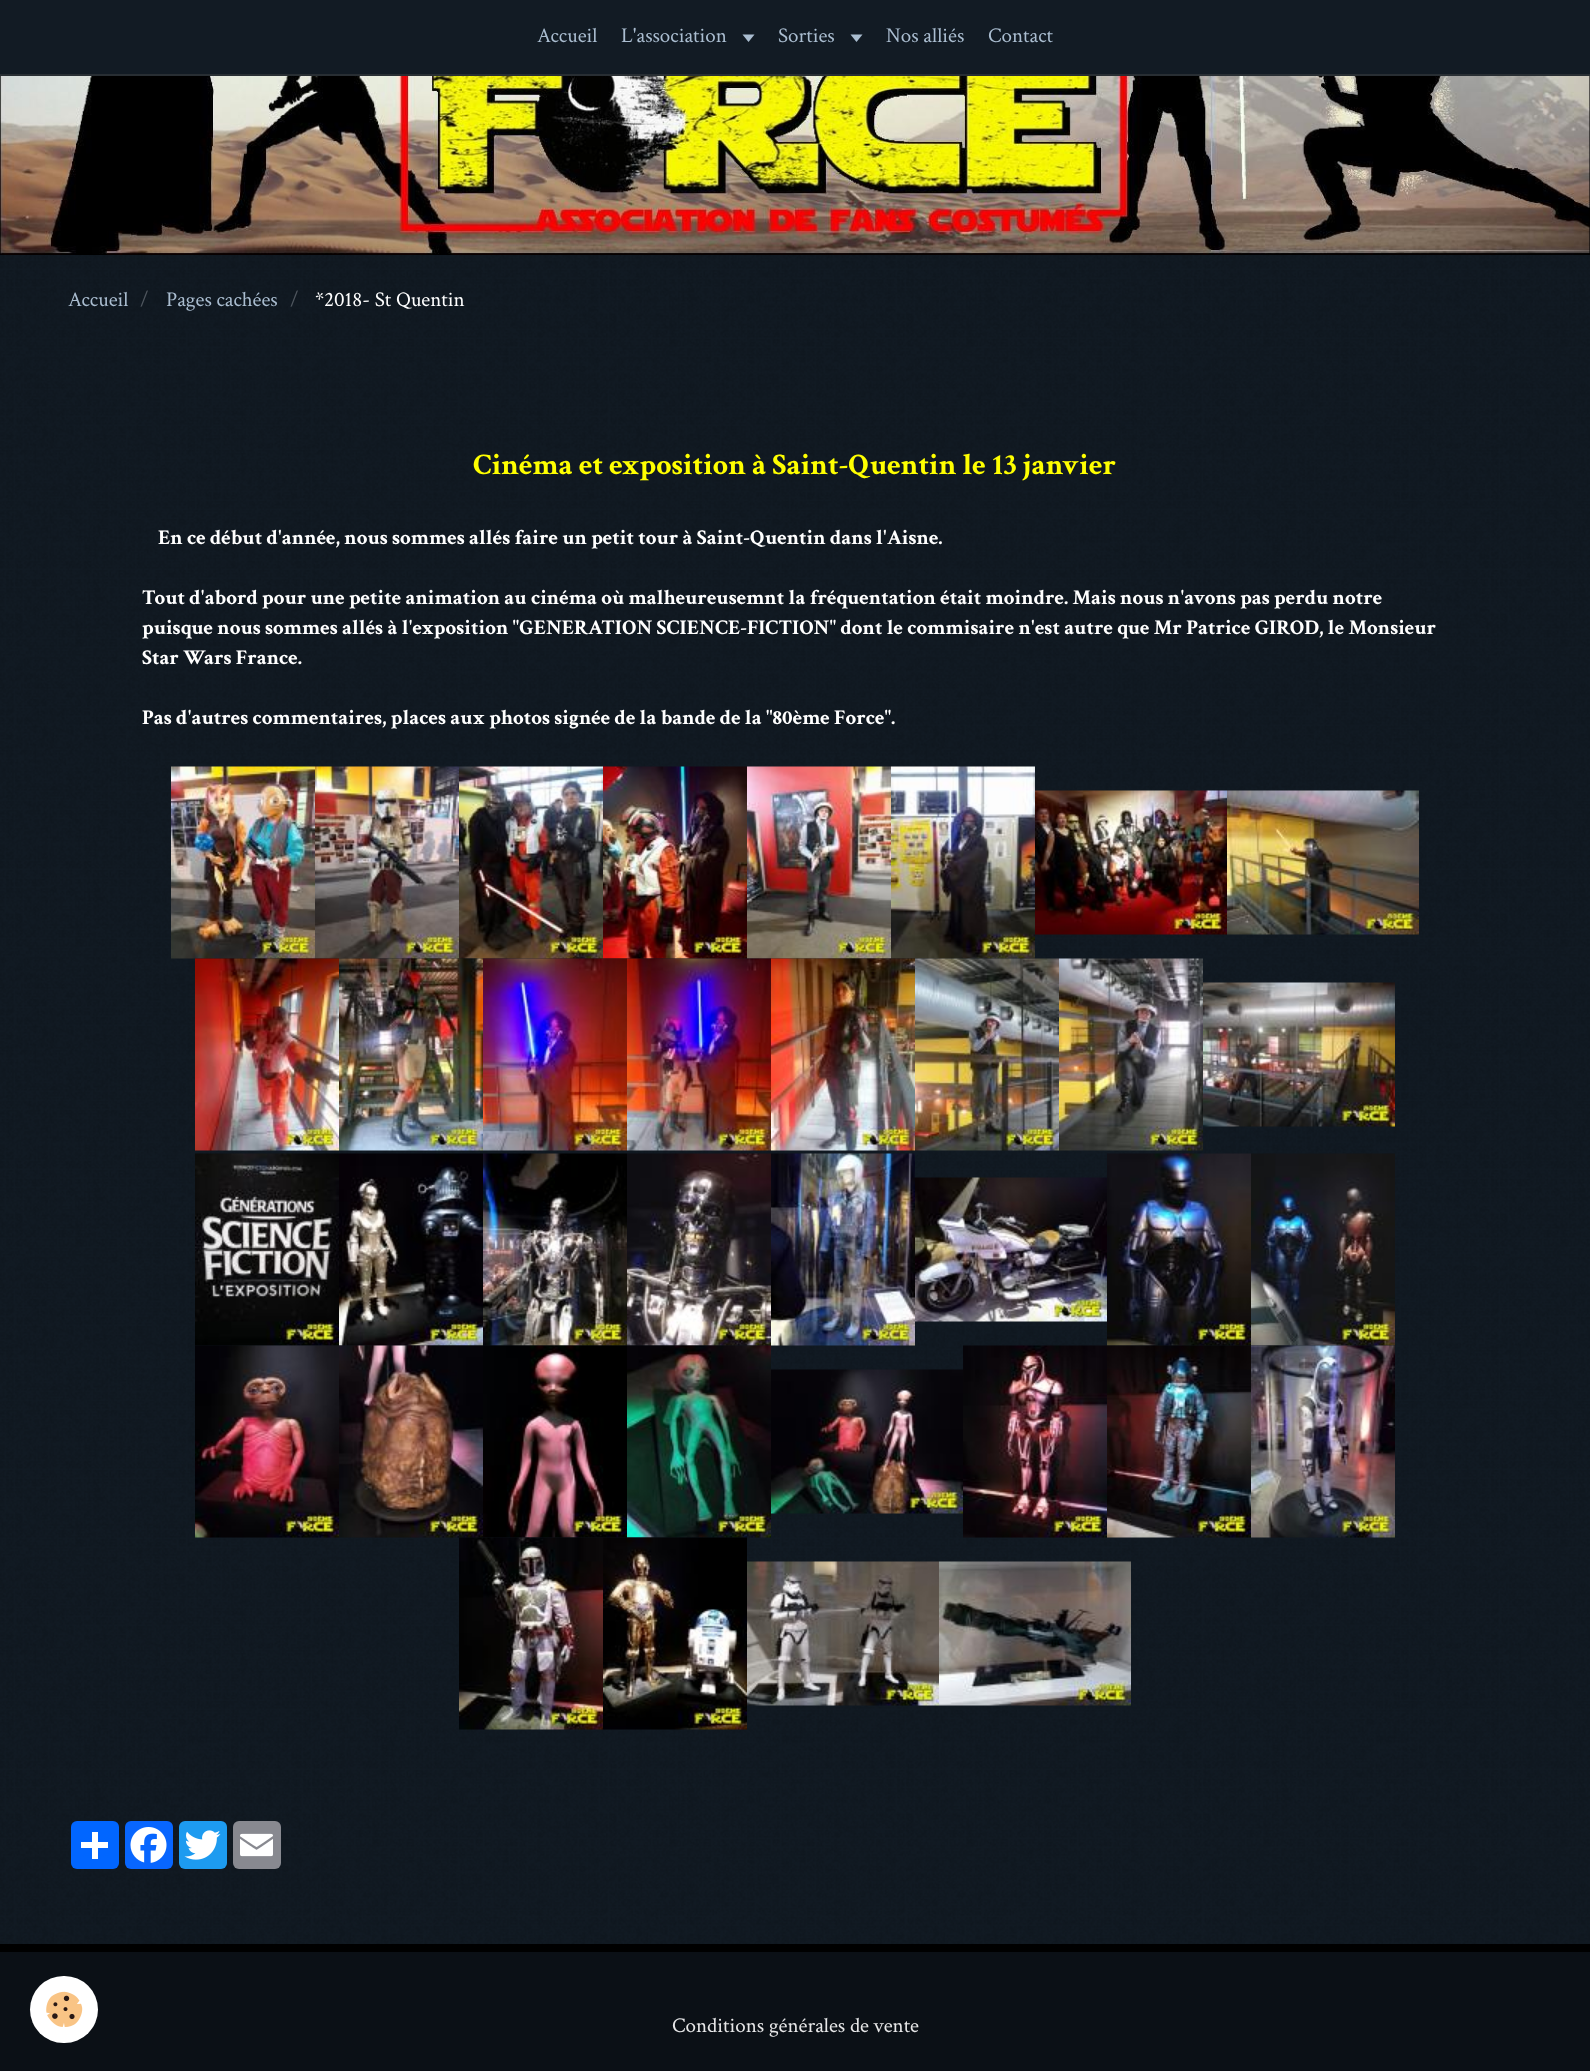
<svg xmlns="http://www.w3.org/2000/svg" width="1590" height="2071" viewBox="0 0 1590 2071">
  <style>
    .t1 { font: 21px Crimson Text; fill: #aabdd0; }
    .t2 { font: 21px Crimson Text; fill: #4e555d; }
    .t3 { font: 21px Crimson Text; fill: #fff; }
    .t4 { font: bold 30px Crimson Text; fill: #ff0; }
    .t5 { font: bold 21px Crimson Text; fill: #fff; }
    .t6 { font: 21px Crimson Text; fill: #e7e7e8; }
  </style>
  <rect width="100%" height="100%" fill="#121b24"/>
  <image x="0" y="255" width="1590" height="1689" href="images/1.png"/>
  <rect x="0" y="74" width="1590" height="2" fill="#282e33"/>
  <text x="537" y="42" class="t1">Accueil</text>
  <text x="621" y="42" class="t1">L'association</text>
  <path d="M742.5 34.5H754.5L748.5 42Z" fill="#aabdd0"/>
  <text x="778" y="42" class="t1">Sorties</text>
  <path d="M850.5 34.5H862.5L856.5 42Z" fill="#aabdd0"/>
  <text x="886" y="42" class="t1">Nos alliés</text>
  <text x="988" y="42" class="t1">Contact</text>
  <image x="0" y="76" width="1590" height="179" href="images/2.png"/>
  <text x="68" y="306" class="t1">Accueil</text>
  <text x="140" y="306" class="t2">/</text>
  <text x="166" y="306" class="t1">Pages cachées</text>
  <text x="290" y="306" class="t2">/</text>
  <text x="315" y="306" class="t3">*2018- St Quentin</text>
  <text x="473" y="474" class="t4">Cinéma et exposition à Saint-Quentin le 13 janvier</text>
  <text x="158" y="544" class="t5">En ce début d'année, nous sommes allés faire un petit tour à Saint-Quentin dans l'Aisne.</text>
  <text x="142" y="604" class="t5">Tout d'abord pour une petite animation au cinéma où malheureusemnt la fréquentation était moindre. Mais nous n'avons pas perdu notre</text>
  <text x="142" y="634" class="t5">puisque nous sommes allés à l'exposition "GENERATION SCIENCE-FICTION" dont le commisaire n'est autre que Mr Patrice GIROD, le Monsieur</text>
  <text x="142" y="664" class="t5">Star Wars France.</text>
  <text x="142" y="724" class="t5">Pas d'autres commentaires, places aux photos signée de la bande de la "80ème Force".</text>
  <image x="171" y="766" width="144" height="193" href="images/3.png"/>
  <image x="315" y="766" width="144" height="193" href="images/4.png"/>
  <image x="459" y="766" width="144" height="193" href="images/5.png"/>
  <image x="603" y="766" width="144" height="193" href="images/6.png"/>
  <image x="747" y="766" width="144" height="193" href="images/7.png"/>
  <image x="891" y="766" width="144" height="193" href="images/8.png"/>
  <image x="1035" y="790" width="192" height="145" href="images/9.png"/>
  <image x="1227" y="790" width="192" height="145" href="images/10.png"/>
  <image x="195" y="958" width="144" height="193" href="images/11.png"/>
  <image x="339" y="958" width="144" height="193" href="images/12.png"/>
  <image x="483" y="958" width="144" height="193" href="images/13.png"/>
  <image x="627" y="958" width="144" height="193" href="images/14.png"/>
  <image x="771" y="958" width="144" height="193" href="images/15.png"/>
  <image x="915" y="958" width="144" height="193" href="images/16.png"/>
  <image x="1059" y="958" width="144" height="193" href="images/17.png"/>
  <image x="1203" y="982" width="192" height="145" href="images/18.png"/>
  <image x="195" y="1153" width="144" height="193" href="images/19.png"/>
  <image x="339" y="1153" width="144" height="193" href="images/20.png"/>
  <image x="483" y="1153" width="144" height="193" href="images/21.png"/>
  <image x="627" y="1153" width="144" height="193" href="images/22.png"/>
  <image x="771" y="1153" width="144" height="193" href="images/23.png"/>
  <image x="915" y="1177" width="192" height="145" href="images/24.png"/>
  <image x="1107" y="1153" width="144" height="193" href="images/25.png"/>
  <image x="1251" y="1153" width="144" height="193" href="images/26.png"/>
  <image x="195" y="1345" width="144" height="193" href="images/27.png"/>
  <image x="339" y="1345" width="144" height="193" href="images/28.png"/>
  <image x="483" y="1345" width="144" height="193" href="images/29.png"/>
  <image x="627" y="1345" width="144" height="193" href="images/30.png"/>
  <image x="771" y="1369" width="192" height="145" href="images/31.png"/>
  <image x="963" y="1345" width="144" height="193" href="images/32.png"/>
  <image x="1107" y="1345" width="144" height="193" href="images/33.png"/>
  <image x="1251" y="1345" width="144" height="193" href="images/34.png"/>
  <image x="459" y="1537" width="144" height="193" href="images/35.png"/>
  <image x="603" y="1537" width="144" height="193" href="images/36.png"/>
  <image x="747" y="1561" width="192" height="145" href="images/37.png"/>
  <image x="939" y="1561" width="192" height="145" href="images/38.png"/>
  <rect x="71" y="1821" width="48" height="48" rx="6" fill="#0166ff"/>
  <rect x="92" y="1832" width="6" height="27" fill="#fff"/>
  <rect x="81" y="1842" width="27" height="6" fill="#fff"/>
  <rect x="125" y="1821" width="48" height="48" rx="6" fill="#0866ff"/>
  <image x="130" y="1827" width="37" height="36" href="images/39.png"/>
  <rect x="179" y="1821" width="48" height="48" rx="6" fill="#1d9bf0"/>
  <image x="184" y="1830" width="37" height="30" href="images/40.png"/>
  <rect x="233" y="1821" width="48" height="48" rx="6" fill="#888990"/>
  <image x="240" y="1833" width="33" height="24" href="images/41.png"/>
  <rect x="0" y="1952" width="1590" height="119" fill="#0b1016"/>
  <rect x="30" y="1976" width="68" height="67" rx="33.5" fill="#fff"/>
  <image x="46" y="1991" width="37" height="36" href="images/42.png"/>
  <rect x="0" y="1944" width="1590" height="8" fill="#000"/>
  <text x="672" y="2032" class="t6">Conditions générales de vente</text>
</svg>
